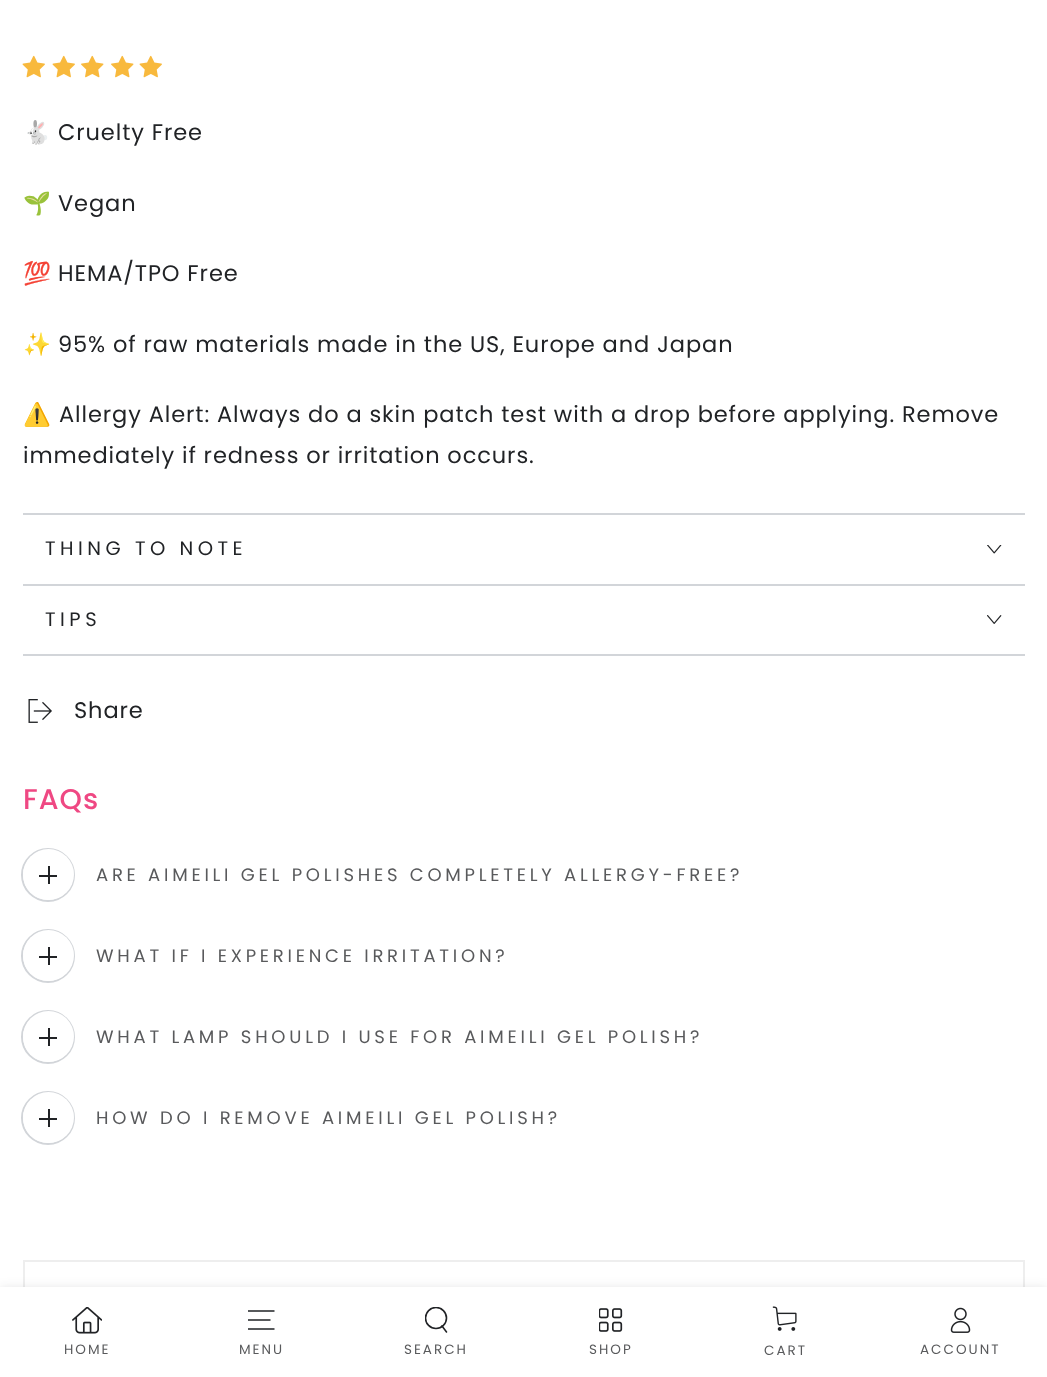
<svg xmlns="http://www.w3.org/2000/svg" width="1047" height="1377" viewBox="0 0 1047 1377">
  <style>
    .t1 { font: 22.5px Noto Color Emoji; letter-spacing: 0.9px; fill: #212326; }
    .t2 { font: 22.5px Poppins; letter-spacing: 0.9px; fill: #212326; }
    .t3 { font: 19.5px Poppins; letter-spacing: 4.5px; fill: #212326; }
    .t4 { font: 500 28.5px Poppins; letter-spacing: 1px; fill: #ef4883; }
    .t5 { font: 18px Poppins; letter-spacing: 3.75px; fill: #595a5c; }
    .t6 { font: 13.5px Poppins; letter-spacing: 2px; fill: #595a5c; }
  </style>
  <defs>
    <clipPath id="clip1"><rect x="248" y="1307" width="27" height="27"/></clipPath>
    <clipPath id="clip2"><rect x="425" y="1307" width="24" height="27"/></clipPath>
  </defs>
  <rect width="100%" height="100%" fill="#fff"/>
  <image x="22" y="55" width="23" height="23" href="images/1.png"/>
  <image x="52" y="55" width="23" height="23" href="images/1.png"/>
  <image x="81" y="55" width="23" height="23" href="images/2.png"/>
  <image x="111" y="55" width="23" height="23" href="images/2.png"/>
  <image x="139" y="55" width="23" height="23" href="images/1.png"/>
  <text x="23" y="140" class="t1">🐇</text>
  <text x="58" y="140" class="t2">Cruelty Free</text>
  <text x="23" y="211" class="t1">🌱</text>
  <text x="58" y="211" class="t2">Vegan</text>
  <text x="23" y="281" class="t1">💯</text>
  <text x="58" y="281" class="t2">HEMA/TPO Free</text>
  <text x="23" y="352" class="t1">✨</text>
  <text x="58" y="352" class="t2">95% of raw materials made in the US, Europe and Japan</text>
  <text x="23" y="422" class="t1">⚠️</text>
  <text x="59" y="422" class="t2">Allergy Alert: Always do a skin patch test with a drop before applying. Remove</text>
  <text x="23" y="463" class="t2">immediately if redness or irritation occurs.</text>
  <rect x="23" y="513" width="1002" height="2" fill="#d2d5d9"/>
  <rect x="23" y="584" width="1002" height="2" fill="#d2d5d9"/>
  <text x="45" y="555" class="t3">THING TO NOTE</text>
  <image x="987" y="545" width="15" height="9" href="images/3.png"/>
  <rect x="23" y="654" width="1002" height="2" fill="#d2d5d9"/>
  <text x="45" y="626" class="t3">TIPS</text>
  <image x="987" y="615" width="15" height="9" href="images/4.png"/>
  <image x="28" y="699" width="24" height="24" href="images/5.png"/>
  <text x="74" y="718" class="t2">Share</text>
  <text x="23" y="809" class="t4">FAQs</text>
  <circle cx="48" cy="875" r="26" fill="none" stroke="#d2d5d9" stroke-width="2"/>
  <circle cx="48.5" cy="874.5" r="25.5" fill="#fff"/>
  <rect x="39" y="875" width="18" height="2" fill="#212326"/>
  <rect x="48" y="866" width="2" height="18" fill="#212326"/>
  <text x="96" y="881" class="t5">ARE AIMEILI GEL POLISHES COMPLETELY ALLERGY-FREE?</text>
  <circle cx="48" cy="956" r="26" fill="none" stroke="#d2d5d9" stroke-width="2"/>
  <circle cx="48.5" cy="955.5" r="25.5" fill="#fff"/>
  <rect x="39" y="956" width="18" height="2" fill="#212326"/>
  <rect x="48" y="947" width="2" height="18" fill="#212326"/>
  <text x="96" y="962" class="t5">WHAT IF I EXPERIENCE IRRITATION?</text>
  <circle cx="48" cy="1037" r="26" fill="none" stroke="#d2d5d9" stroke-width="2"/>
  <circle cx="48.5" cy="1036.5" r="25.5" fill="#fff"/>
  <rect x="39" y="1037" width="18" height="2" fill="#212326"/>
  <rect x="48" y="1028" width="2" height="18" fill="#212326"/>
  <text x="96" y="1043" class="t5">WHAT LAMP SHOULD I USE FOR AIMEILI GEL POLISH?</text>
  <circle cx="48" cy="1118" r="26" fill="none" stroke="#d2d5d9" stroke-width="2"/>
  <circle cx="48.5" cy="1117.5" r="25.5" fill="#fff"/>
  <rect x="39" y="1118" width="18" height="2" fill="#212326"/>
  <rect x="48" y="1109" width="2" height="18" fill="#212326"/>
  <text x="96" y="1124" class="t5">HOW DO I REMOVE AIMEILI GEL POLISH?</text>
  <rect x="24" y="1261" width="1000" height="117" fill="none" stroke="#eee" stroke-width="2"/>
  <rect x="0" y="1289" width="1047" height="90" fill="#21232626" filter="blur(6px)"/>
  <rect x="0" y="1287" width="1047" height="90" fill="#fff"/>
  <image x="72" y="1307" width="30" height="27" href="images/6.png"/>
  <text x="64" y="1354" class="t6">HOME</text>
  <g clip-path="url(#clip1)">
    <path d="M247.5 1329H274.5M247.5 1320H270.5M247.5 1311H274.5" fill="none" stroke="#212326" stroke-width="1.7"/>
  </g>
  <text x="239" y="1354" class="t6">MENU</text>
  <g clip-path="url(#clip2)">
    <circle cx="436" cy="1318" r="10.5" fill="none" stroke="#212326" stroke-width="1.6"/>
  </g>
  <path d="M442 1326L446.5 1332" fill="none" stroke="#212326" stroke-width="1.6" stroke-linecap="round"/>
  <text x="404" y="1354" class="t6">SEARCH</text>
  <image x="599" y="1308" width="24" height="24" href="images/7.png"/>
  <text x="589" y="1354" class="t6">SHOP</text>
  <image x="772" y="1306" width="25" height="25" href="images/8.png"/>
  <text x="764" y="1355" class="t6">CART</text>
  <image x="950" y="1307" width="21" height="26" href="images/9.png"/>
  <text x="920" y="1354" class="t6">ACCOUNT</text>
</svg>
